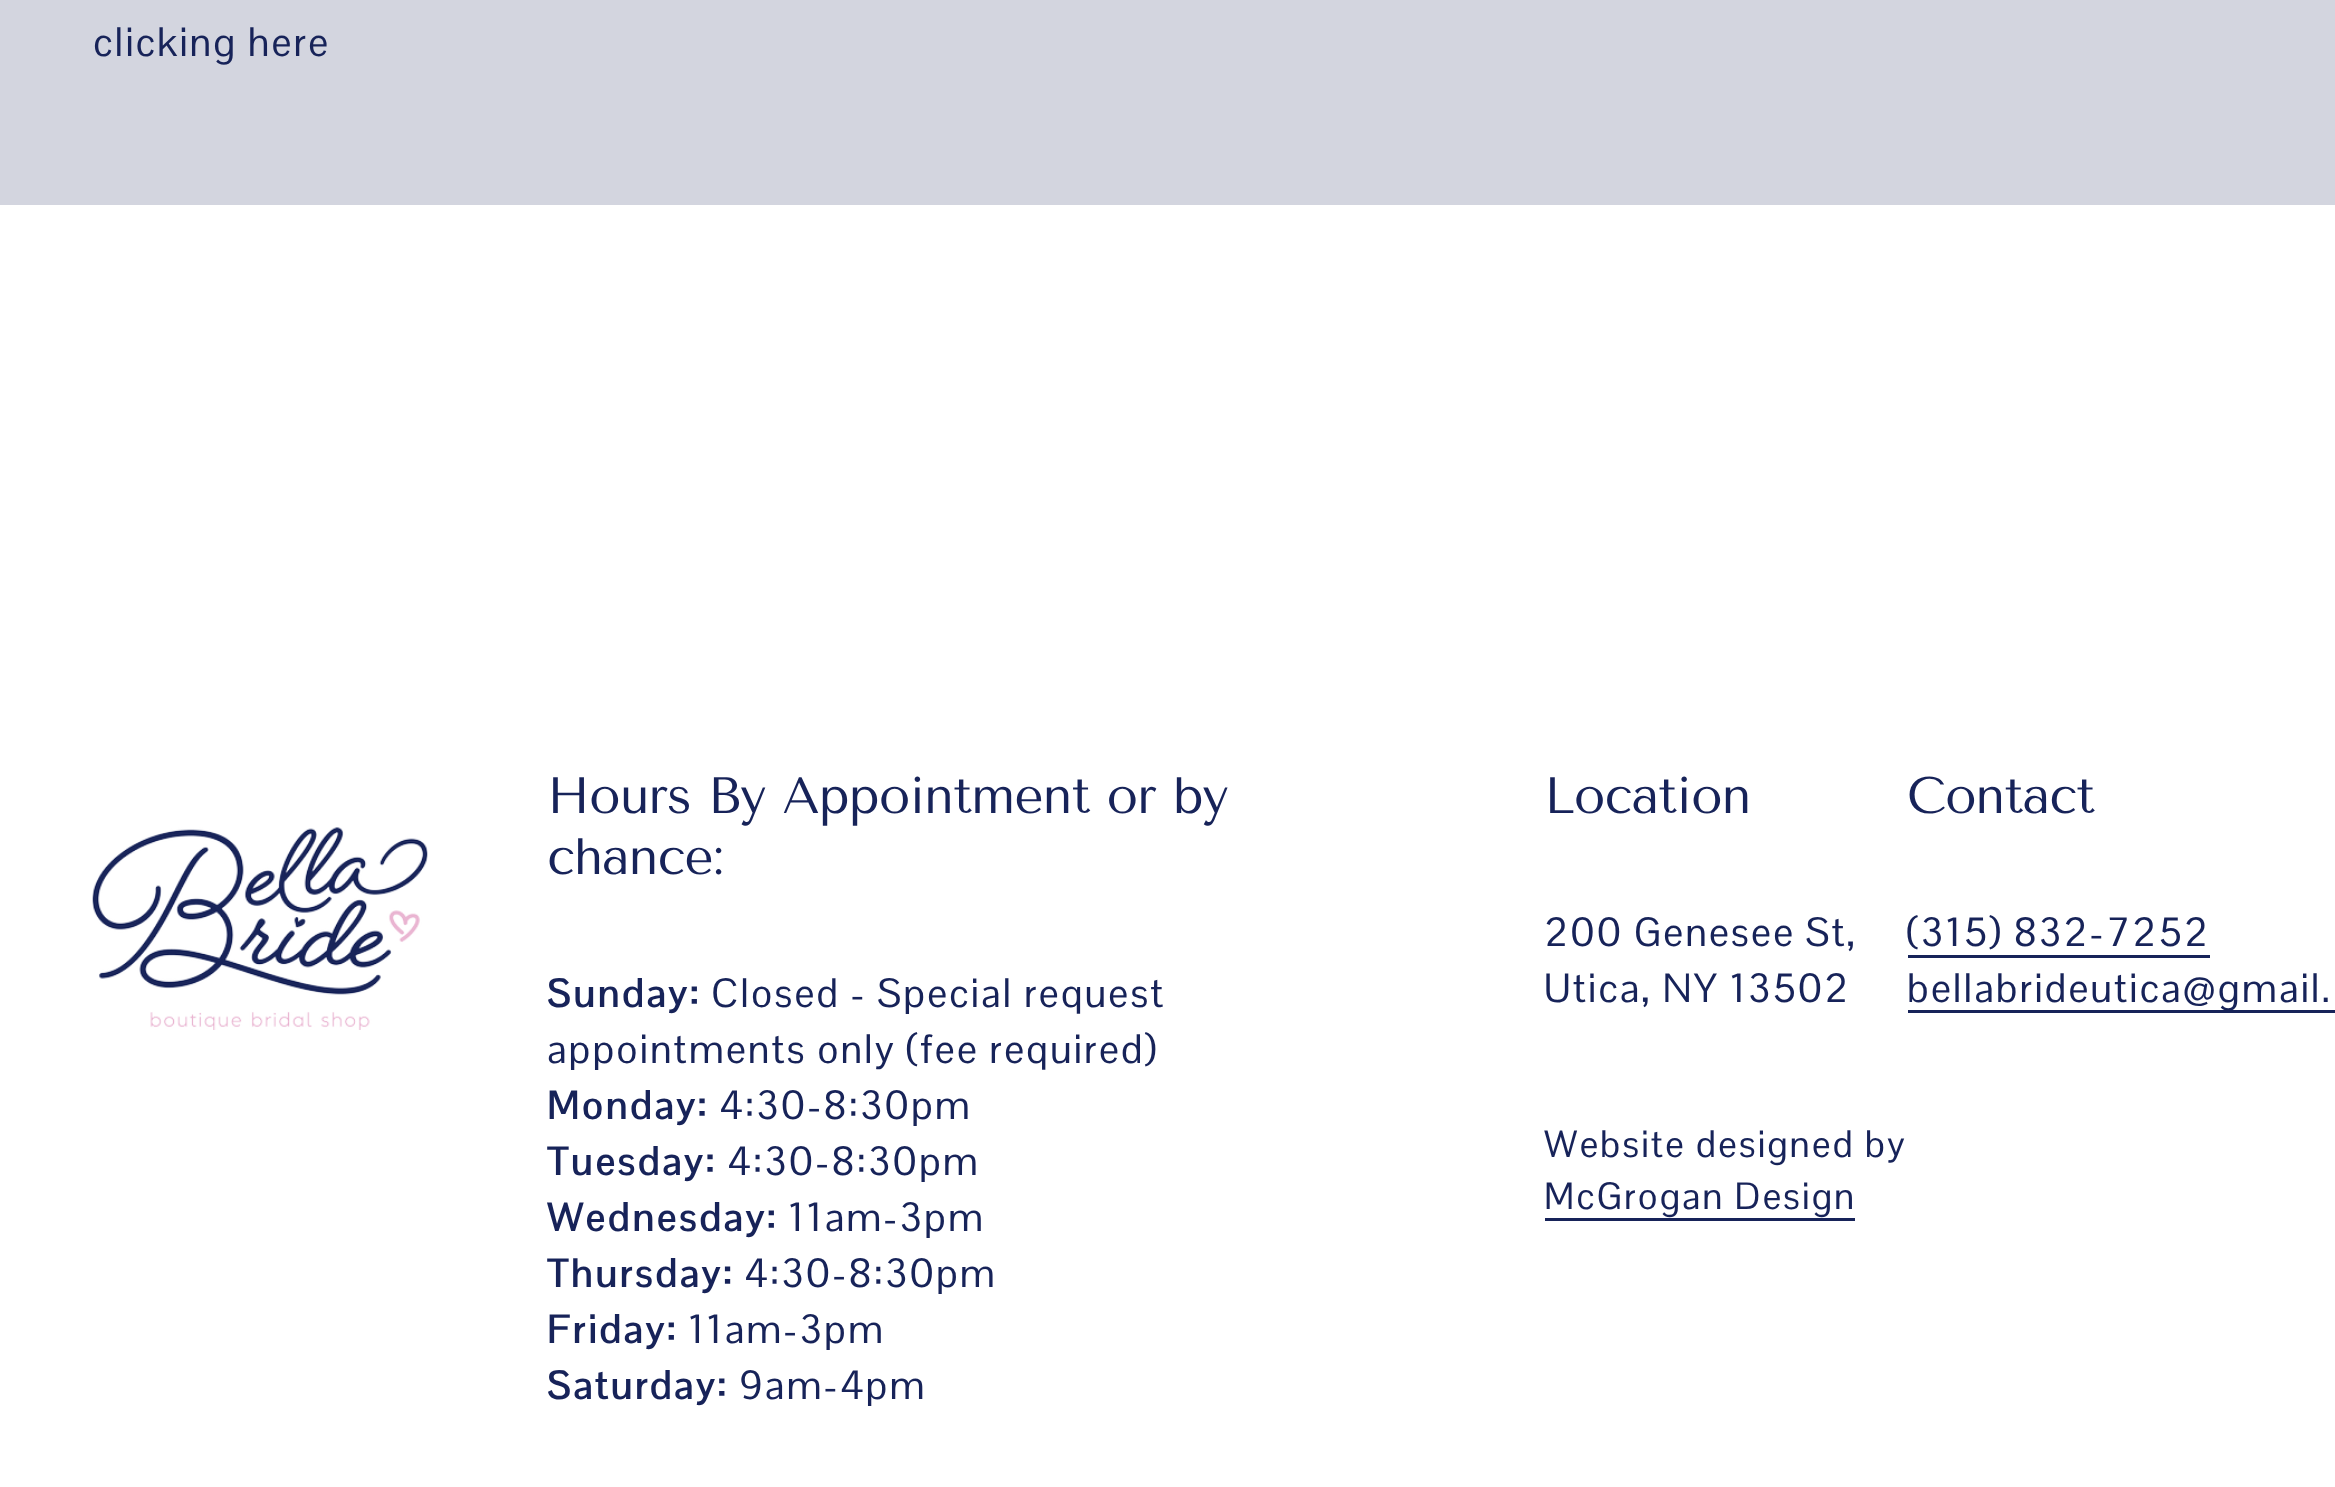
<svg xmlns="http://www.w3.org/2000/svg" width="2335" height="1487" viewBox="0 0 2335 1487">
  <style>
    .t1 { font: 40px Pontano Sans; letter-spacing: 2px; fill: #172359; }
    .t2 { font: 51.25px Tenor Sans; letter-spacing: -1px; fill: #172359; }
    .t3 { font: bold 40px Pontano Sans; letter-spacing: 2px; fill: #172359; }
    .t4 { font: 37.25px Pontano Sans; letter-spacing: 2px; fill: #172359; }
  </style>
  <rect width="100%" height="100%" fill="#d3d5df"/>
  <text x="93" y="56" class="t1">clicking here</text>
  <rect x="0" y="205" width="2335" height="1282" fill="#fff"/>
  <image x="92" y="827" width="336" height="203" href="images/1.png"/>
  <text x="547" y="813" class="t2">Hours By Appointment or by</text>
  <text x="547" y="874" class="t2">chance:</text>
  <text x="547" y="1007" class="t3">Sunday:</text>
  <text x="711" y="1007" class="t1">Closed - Special request</text>
  <text x="547" y="1063" class="t1">appointments only (fee required)</text>
  <text x="547" y="1119" class="t3">Monday:</text>
  <text x="719" y="1119" class="t1">4:30-8:30pm</text>
  <text x="547" y="1175" class="t3">Tuesday:</text>
  <text x="727" y="1175" class="t1">4:30-8:30pm</text>
  <text x="547" y="1231" class="t3">Wednesday:</text>
  <text x="788" y="1231" class="t1">11am-3pm</text>
  <text x="547" y="1287" class="t3">Thursday:</text>
  <text x="744" y="1287" class="t1">4:30-8:30pm</text>
  <text x="547" y="1343" class="t3">Friday:</text>
  <text x="688" y="1343" class="t1">11am-3pm</text>
  <text x="547" y="1399" class="t3">Saturday:</text>
  <text x="739" y="1399" class="t1">9am-4pm</text>
  <text x="1544" y="813" class="t2">Location</text>
  <text x="1544" y="946" class="t1">200 Genesee St,</text>
  <text x="1544" y="1002" class="t1">Utica, NY 13502</text>
  <text x="1907" y="813" class="t2">Contact</text>
  <text x="1907" y="946" class="t1">(315) 832-7252</text>
  <rect x="1908" y="955" width="302" height="3" fill="#172359"/>
  <rect x="1908" y="1010" width="427" height="3" fill="#172359"/>
  <text x="1907" y="1002" class="t1">bellabrideutica@gmail.</text>
  <text x="1544" y="1157" class="t4">Website designed by</text>
  <text x="1544" y="1209" class="t4">McGrogan Design</text>
  <rect x="1545" y="1218" width="310" height="3" fill="#172359"/>
</svg>
